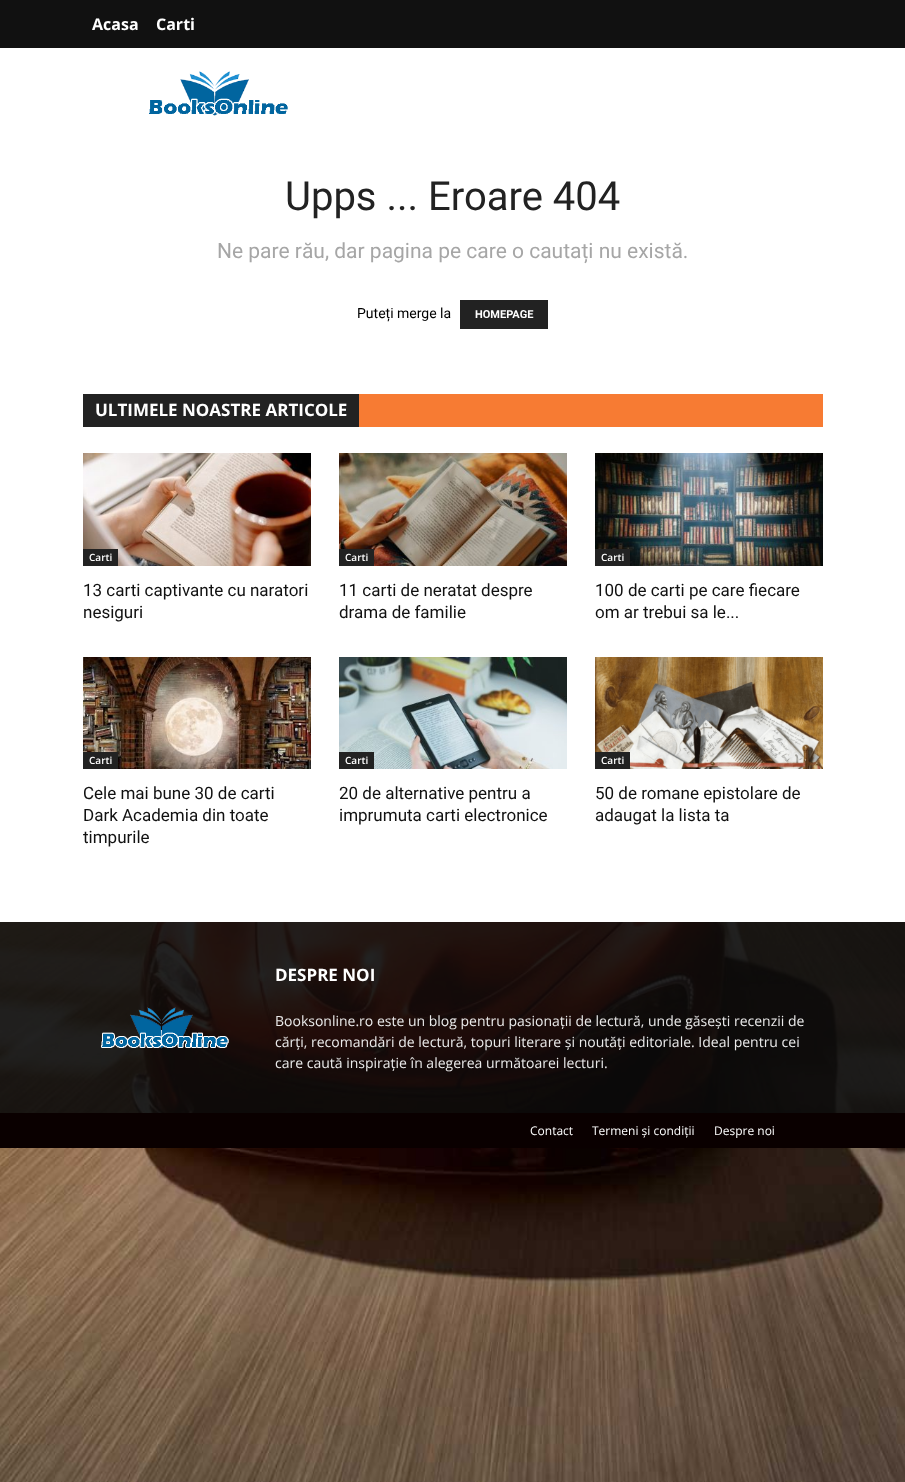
<svg xmlns="http://www.w3.org/2000/svg" width="905" height="1482" viewBox="0 0 905 1482">
  <style>
    .t1 { font: bold 16px Open Sans; fill: #fff; }
    .t2 { font: 40px Roboto; fill: #222; }
    .t3 { font: 21px Roboto; fill: #a6a6a6; }
    .t4 { font: 14px Roboto; fill: #000; }
    .t5 { font: bold 11px Roboto; fill: #fff; }
    .t6 { font: bold 17px Open Sans; fill: #fff; }
    .t7 { font: 600 10px Open Sans; fill: #fff; }
    .t8 { font: 17px Roboto; fill: #111; }
    .t9 { font: 14px Open Sans; fill: #eaeaea; }
    .t10 { font: 12px Open Sans; fill: #fff; }
  </style>
  <rect width="100%" height="100%" fill="#fff"/>
  <rect x="0" y="0" width="905" height="48" fill="#111"/>
  <text x="92" y="30" class="t1">Acasa</text>
  <text x="156" y="30" class="t1">Carti</text>
  <image x="149" y="71" width="139" height="45" href="images/1.png"/>
  <text x="285" y="210" class="t2">Upps ... Eroare 404</text>
  <text x="217" y="258" class="t3">Ne pare rău, dar pagina pe care o cautați nu există.</text>
  <text x="357" y="318" class="t4">Puteți merge la</text>
  <rect x="460" y="300" width="88" height="29" fill="#222"/>
  <text x="475" y="318" class="t5">HOMEPAGE</text>
  <rect x="359" y="394" width="464" height="33" fill="#f77b33"/>
  <rect x="83" y="394" width="276" height="33" fill="#222"/>
  <text x="95" y="416" class="t6">ULTIMELE NOASTRE ARTICOLE</text>
  <image x="83" y="453" width="228" height="113" href="images/2.png"/>
  <rect x="83" y="549" width="35" height="17" fill="#222"/>
  <text x="89" y="561" class="t7">Carti</text>
  <text x="83" y="596" class="t8">13 carti captivante cu naratori</text>
  <text x="83" y="618" class="t8">nesiguri</text>
  <image x="339" y="453" width="228" height="113" href="images/3.png"/>
  <rect x="339" y="549" width="35" height="17" fill="#222"/>
  <text x="345" y="561" class="t7">Carti</text>
  <text x="339" y="596" class="t8">11 carti de neratat despre</text>
  <text x="339" y="618" class="t8">drama de familie</text>
  <image x="595" y="453" width="228" height="113" href="images/4.png"/>
  <rect x="595" y="549" width="35" height="17" fill="#222"/>
  <text x="601" y="561" class="t7">Carti</text>
  <text x="595" y="596" class="t8">100 de carti pe care fiecare</text>
  <text x="595" y="618" class="t8">om ar trebui sa le...</text>
  <image x="83" y="657" width="228" height="112" href="images/5.png"/>
  <rect x="83" y="752" width="35" height="17" fill="#222"/>
  <text x="89" y="764" class="t7">Carti</text>
  <text x="83" y="799" class="t8">Cele mai bune 30 de carti</text>
  <text x="83" y="821" class="t8">Dark Academia din toate</text>
  <text x="83" y="843" class="t8">timpurile</text>
  <image x="339" y="657" width="228" height="112" href="images/6.png"/>
  <rect x="339" y="752" width="35" height="17" fill="#222"/>
  <text x="345" y="764" class="t7">Carti</text>
  <text x="339" y="799" class="t8">20 de alternative pentru a</text>
  <text x="339" y="821" class="t8">imprumuta carti electronice</text>
  <image x="595" y="657" width="228" height="112" href="images/7.png"/>
  <rect x="595" y="752" width="35" height="17" fill="#222"/>
  <text x="601" y="764" class="t7">Carti</text>
  <text x="595" y="799" class="t8">50 de romane epistolare de</text>
  <text x="595" y="821" class="t8">adaugat la lista ta</text>
  <image x="0" y="922" width="905" height="560" href="images/9.png"/>
  <rect x="0" y="922" width="905" height="191" fill="#0a0a0ae6"/>
  <image x="101" y="1007" width="128" height="42" href="images/8.png"/>
  <text x="275" y="981" class="t6">DESPRE NOI</text>
  <text x="275" y="1026" class="t9">Booksonline.ro este un blog pentru pasionații de lectură, unde găsești recenzii de</text>
  <text x="275" y="1047" class="t9">cărți, recomandări de lectură, topuri literare și noutăți editoriale. Ideal pentru cei</text>
  <text x="275" y="1068" class="t9">care caută inspirație în alegerea următoarei lecturi.</text>
  <rect x="0" y="1113" width="905" height="35" fill="#0a0000"/>
  <text x="530" y="1135" class="t10">Contact</text>
  <text x="592" y="1135" class="t10">Termeni și condiții</text>
  <text x="714" y="1135" class="t10">Despre noi</text>
</svg>
